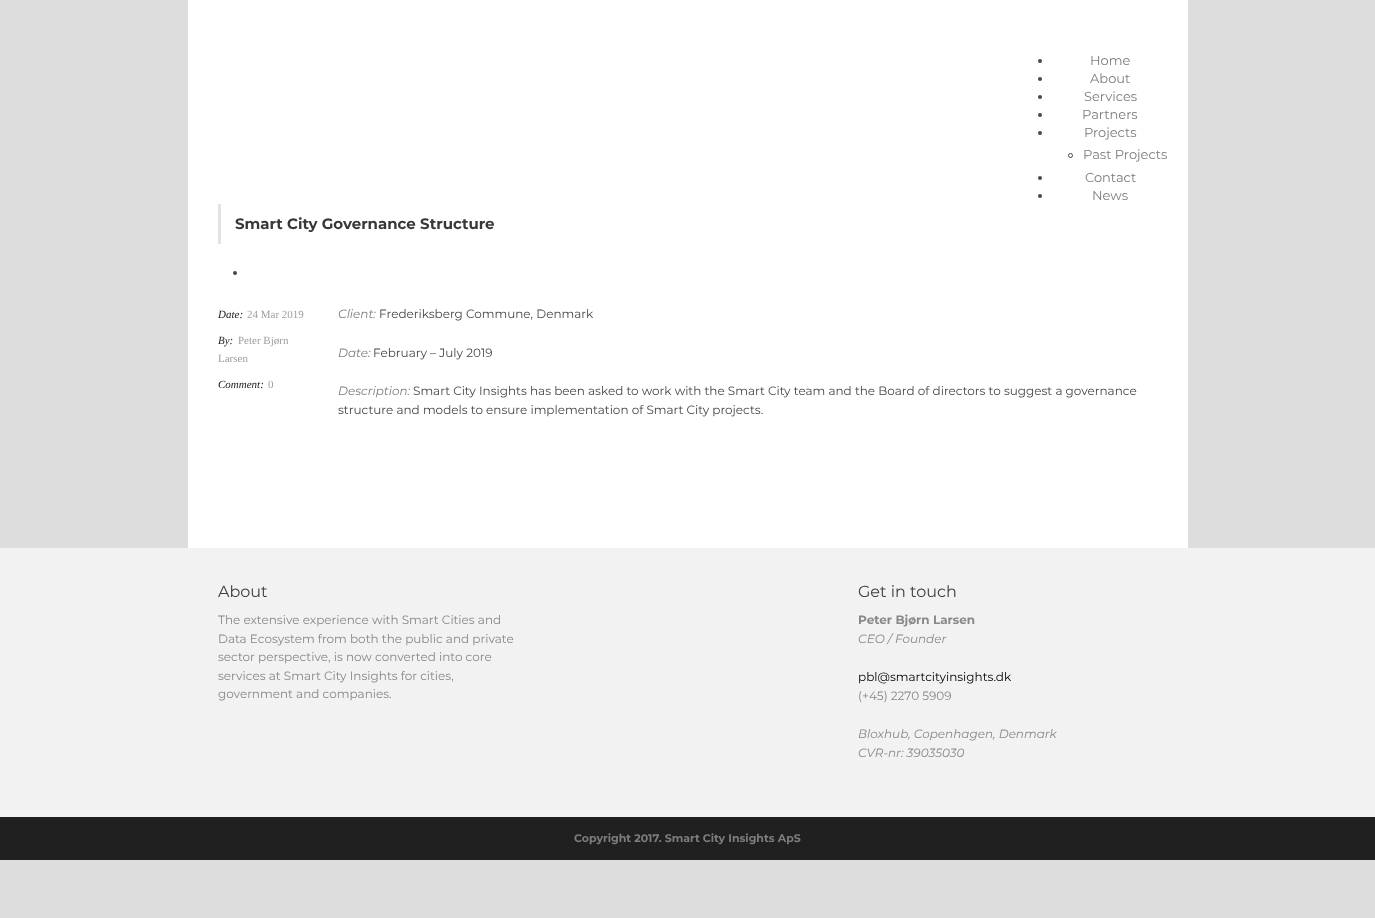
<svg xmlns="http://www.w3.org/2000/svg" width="1375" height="918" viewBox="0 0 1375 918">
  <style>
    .t1 { font: 13px Montserrat; fill: #7d7d7d; }
    .t2 { font: bold 15px Montserrat; fill: #383838; }
    .t3 { font: italic 11px Liberation Serif; fill: #212121; }
    .t4 { font: 11px Liberation Serif; fill: #9e9e9e; }
    .t5 { font: italic 12px Montserrat; fill: #7d7d7d; }
    .t6 { font: 12px Montserrat; fill: #474747; }
    .t7 { font: 16px Montserrat; fill: #404040; }
    .t8 { font: 12px Montserrat; fill: #888; }
    .t9 { font: bold 12px Montserrat; fill: #888; }
    .t10 { font: italic 12px Montserrat; fill: #888; }
    .t11 { font: 12px Montserrat; fill: #000; }
    .t12 { font: bold 11px Montserrat; fill: #7d7d7d; }
  </style>
  <rect width="100%" height="100%" fill="#ddd"/>
  <rect x="188" y="0" width="1000" height="548" fill="#fff"/>
  <circle cx="1040" cy="61" r="2" fill="#474747"/>
  <text x="1090" y="65" class="t1">Home</text>
  <circle cx="1040" cy="79" r="2" fill="#474747"/>
  <text x="1090" y="83" class="t1">About</text>
  <circle cx="1040" cy="97" r="2" fill="#474747"/>
  <text x="1084" y="101" class="t1">Services</text>
  <circle cx="1040" cy="115" r="2" fill="#474747"/>
  <text x="1082" y="119" class="t1">Partners</text>
  <circle cx="1040" cy="133" r="2" fill="#474747"/>
  <text x="1084" y="137" class="t1">Projects</text>
  <circle cx="1070.5" cy="155.5" r="2" fill="none" stroke="#474747"/>
  <text x="1083" y="159" class="t1">Past Projects</text>
  <circle cx="1040" cy="178" r="2" fill="#474747"/>
  <text x="1085" y="182" class="t1">Contact</text>
  <circle cx="1040" cy="196" r="2" fill="#474747"/>
  <text x="1092" y="200" class="t1">News</text>
  <rect x="218" y="204" width="3" height="40" fill="#e3e3e3"/>
  <text x="235" y="229" class="t2">Smart City Governance Structure</text>
  <circle cx="235" cy="273" r="2" fill="#474747"/>
  <text x="218" y="318" class="t3">Date:</text>
  <text x="247" y="318" class="t4">24 Mar 2019</text>
  <text x="218" y="344" class="t3">By:</text>
  <text x="238" y="344" class="t4">Peter Bjørn</text>
  <text x="218" y="362" class="t4">Larsen</text>
  <text x="218" y="388" class="t3">Comment:</text>
  <text x="268" y="388" class="t4">0</text>
  <text x="338" y="318" class="t5">Client:</text>
  <text x="379" y="318" class="t6">Frederiksberg Commune, Denmark</text>
  <text x="338" y="357" class="t5">Date:</text>
  <text x="373" y="357" class="t6">February – July 2019</text>
  <text x="338" y="395" class="t5">Description:</text>
  <text x="413" y="395" class="t6">Smart City Insights has been asked to work with the Smart City team and the Board of directors to suggest a governance</text>
  <text x="338" y="414" class="t6">structure and models to ensure implementation of Smart City projects.</text>
  <rect x="0" y="548" width="1375" height="269" fill="#f2f2f2"/>
  <text x="218" y="597" class="t7">About</text>
  <text x="218" y="624" class="t8">The extensive experience with Smart Cities and</text>
  <text x="218" y="643" class="t8">Data Ecosystem from both the public and private</text>
  <text x="218" y="661" class="t8">sector perspective, is now converted into core</text>
  <text x="218" y="680" class="t8">services at Smart City Insights for cities,</text>
  <text x="218" y="698" class="t8">government and companies.</text>
  <text x="858" y="597" class="t7">Get in touch</text>
  <text x="858" y="624" class="t9">Peter Bjørn Larsen</text>
  <text x="858" y="643" class="t10">CEO / Founder</text>
  <text x="858" y="681" class="t11">pbl@smartcityinsights.dk</text>
  <text x="858" y="700" class="t8">(+45) 2270 5909</text>
  <text x="858" y="738" class="t10">Bloxhub, Copenhagen, Denmark</text>
  <text x="858" y="757" class="t10">CVR-nr: 39035030</text>
  <rect x="0" y="817" width="1375" height="43" fill="#202020"/>
  <text x="574" y="842" class="t12">Copyright 2017. Smart City Insights ApS</text>
</svg>
